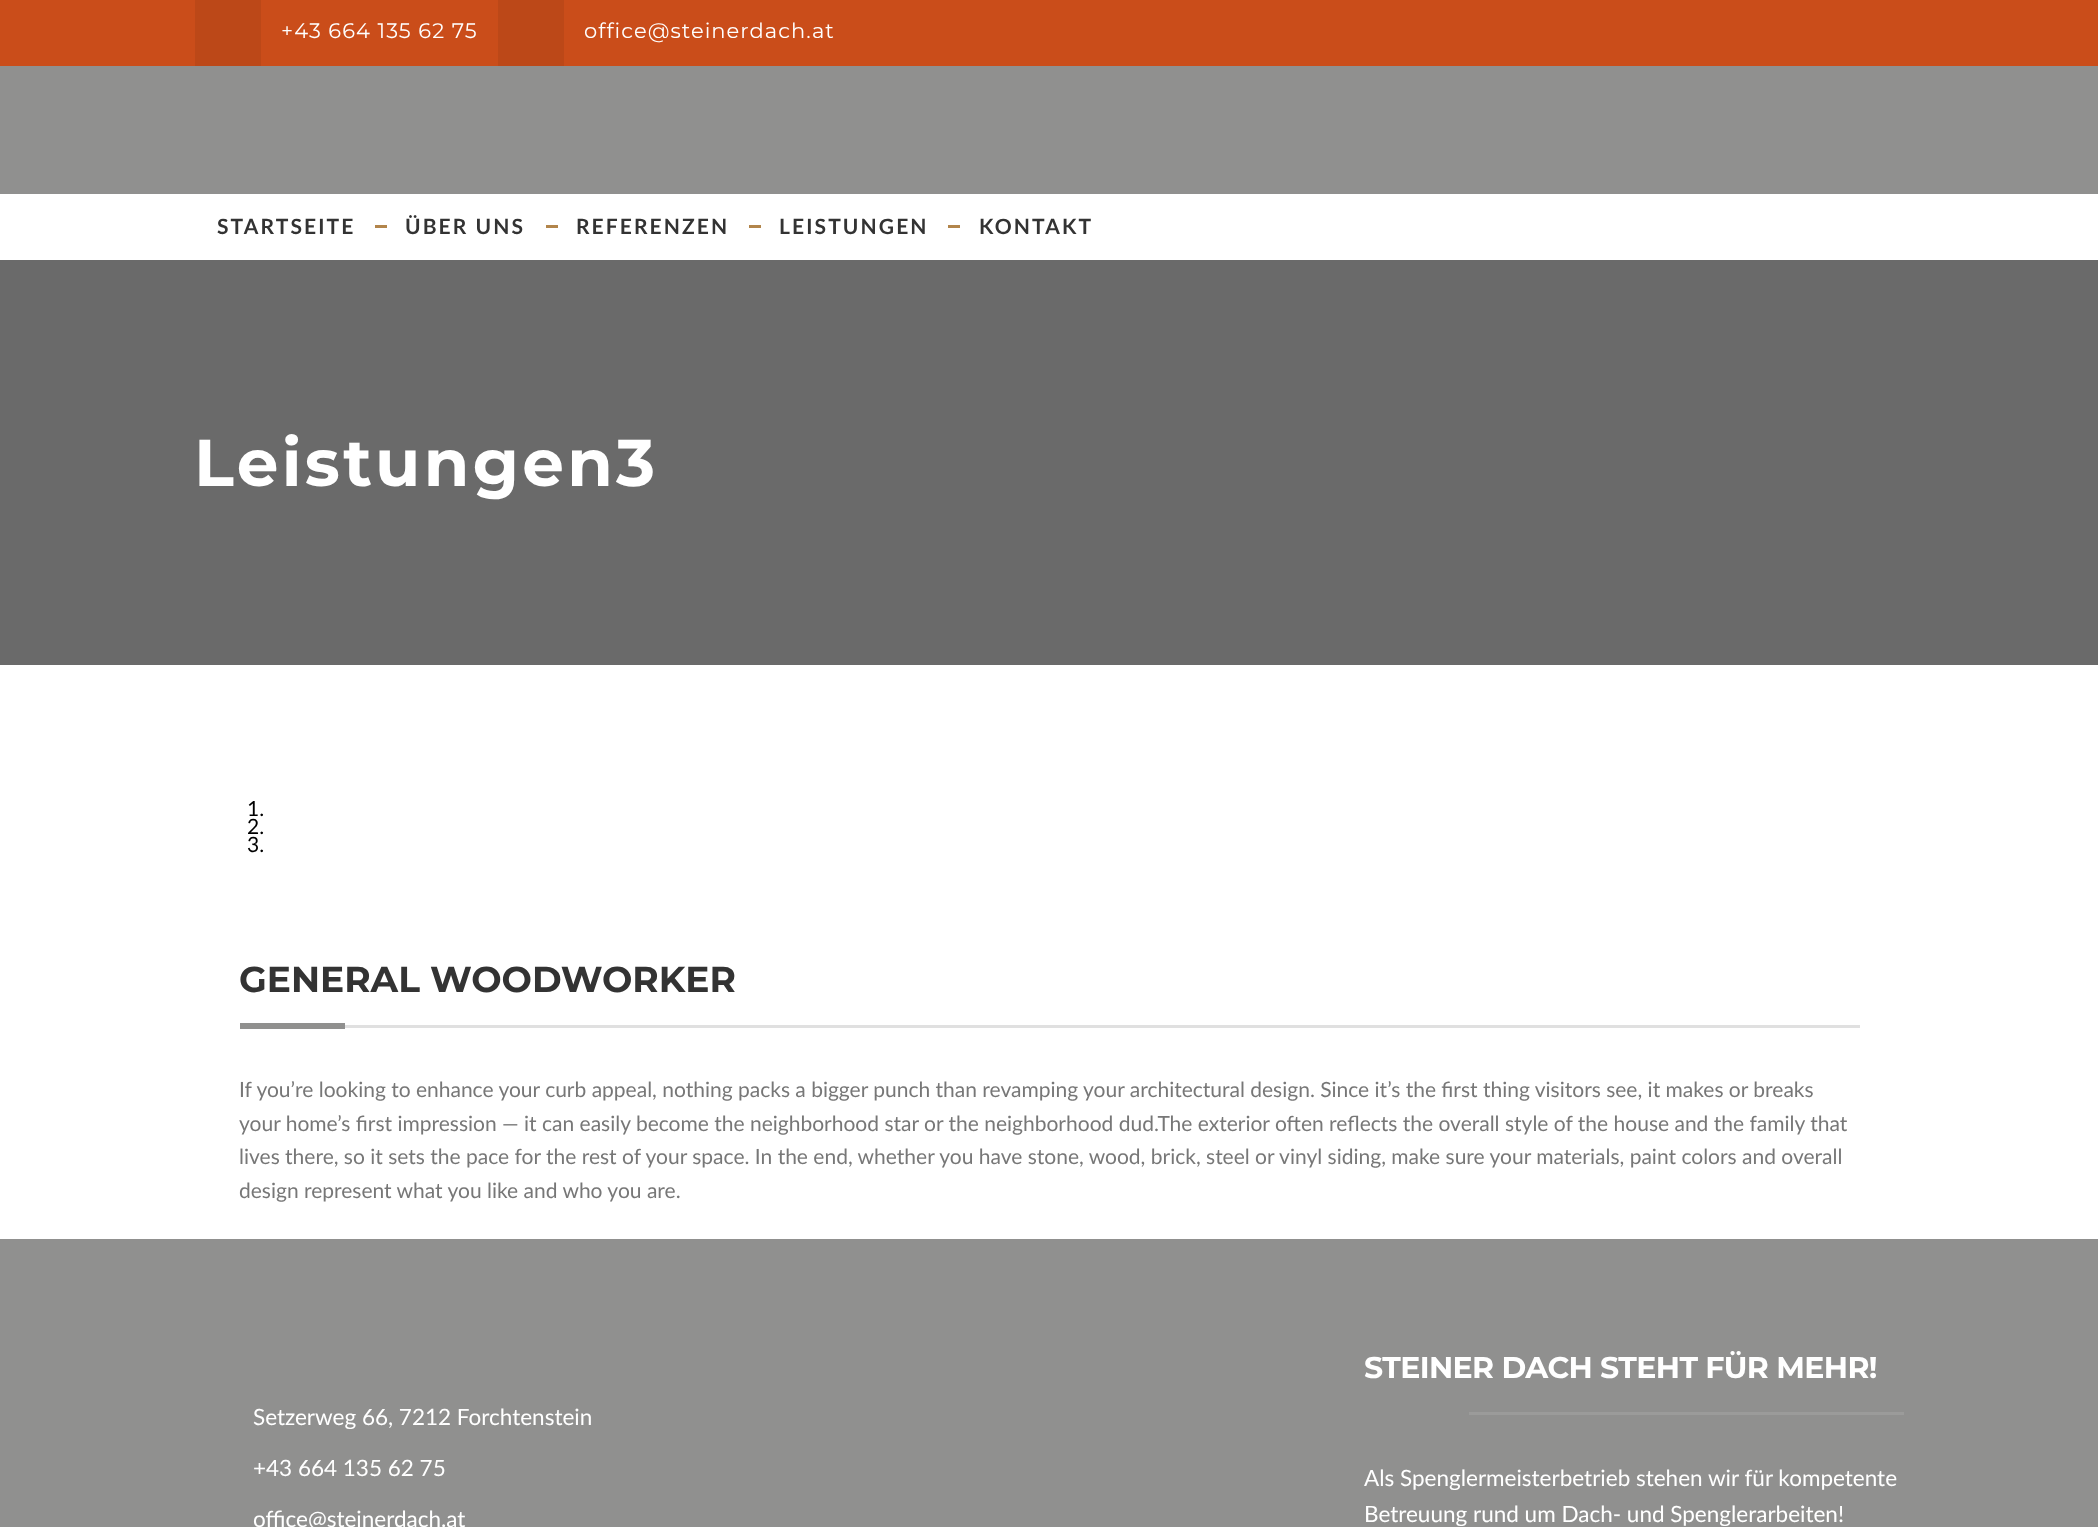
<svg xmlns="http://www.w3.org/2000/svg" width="2098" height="1527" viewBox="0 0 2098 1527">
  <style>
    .t1 { font: 21px Montserrat; letter-spacing: 1.05px; fill: #fff; }
    .t2 { font: bold 21px Lato; letter-spacing: 2.1px; fill: #333; }
    .t3 { font: bold 66px Montserrat; letter-spacing: 3.25px; fill: #fff; }
    .t4 { font: 21px Lato; fill: #000; }
    .t5 { font: bold 36px Montserrat; fill: #333; }
    .t6 { font: 21px Lato; fill: #777; }
    .t7 { font: 22.5px Lato; fill: #fff; }
    .t8 { font: bold 30px Montserrat; letter-spacing: -0.6px; fill: #fff; }
  </style>
  <rect width="100%" height="100%" fill="#fff"/>
  <rect x="0" y="66" width="2098" height="128" fill="#90908f"/>
  <rect x="0" y="0" width="2098" height="66" fill="#ca4d1a"/>
  <rect x="195" y="0" width="66" height="66" fill="#bc4818"/>
  <text x="281" y="38" class="t1">+43 664 135 62 75</text>
  <rect x="498" y="0" width="66" height="66" fill="#bc4818"/>
  <text x="584" y="38" class="t1">office@steinerdach.at</text>
  <text x="217" y="234" class="t2">STARTSEITE</text>
  <rect x="375" y="225" width="12" height="3" fill="#b2854b"/>
  <text x="405" y="234" class="t2">ÜBER UNS</text>
  <rect x="546" y="225" width="12" height="3" fill="#b2854b"/>
  <text x="576" y="234" class="t2">REFERENZEN</text>
  <rect x="749" y="225" width="12" height="3" fill="#b2854b"/>
  <text x="779" y="234" class="t2">LEISTUNGEN</text>
  <rect x="948" y="225" width="12" height="3" fill="#b2854b"/>
  <text x="979" y="234" class="t2">KONTAKT</text>
  <rect x="0" y="260" width="2098" height="405" fill="#6a6a6a"/>
  <text x="194" y="486" class="t3">Leistungen3</text>
  <text x="247" y="816" class="t4">1.</text>
  <text x="247" y="834" class="t4">2.</text>
  <text x="247" y="852" class="t4">3.</text>
  <text x="239" y="992" class="t5">GENERAL WOODWORKER</text>
  <rect x="240" y="1023" width="105" height="6" fill="#90908f"/>
  <rect x="345" y="1025" width="1515" height="3" fill="#e0e0e0"/>
  <text x="239" y="1097" class="t6">If you’re looking to enhance your curb appeal, nothing packs a bigger punch than revamping your architectural design. Since it’s the first thing visitors see, it makes or breaks</text>
  <text x="239" y="1131" class="t6">your home’s first impression — it can easily become the neighborhood star or the neighborhood dud.The exterior often reflects the overall style of the house and the family that</text>
  <text x="239" y="1164" class="t6">lives there, so it sets the pace for the rest of your space. In the end, whether you have stone, wood, brick, steel or vinyl siding, make sure your materials, paint colors and overall</text>
  <text x="239" y="1198" class="t6">design represent what you like and who you are.</text>
  <rect x="0" y="1239" width="2098" height="288" fill="#90908f"/>
  <text x="253" y="1425" class="t7">Setzerweg 66, 7212 Forchtenstein</text>
  <text x="253" y="1476" class="t7">+43 664 135 62 75</text>
  <text x="253" y="1527" class="t7">office@steinerdach.at</text>
  <text x="1364" y="1378" class="t8">STEINER DACH STEHT FÜR MEHR!</text>
  <rect x="1469" y="1412" width="435" height="3" fill="#9b9b9a"/>
  <text x="1364" y="1486" class="t7">Als Spenglermeisterbetrieb stehen wir für kompetente</text>
  <text x="1364" y="1522" class="t7">Betreuung rund um Dach- und Spenglerarbeiten!</text>
</svg>
